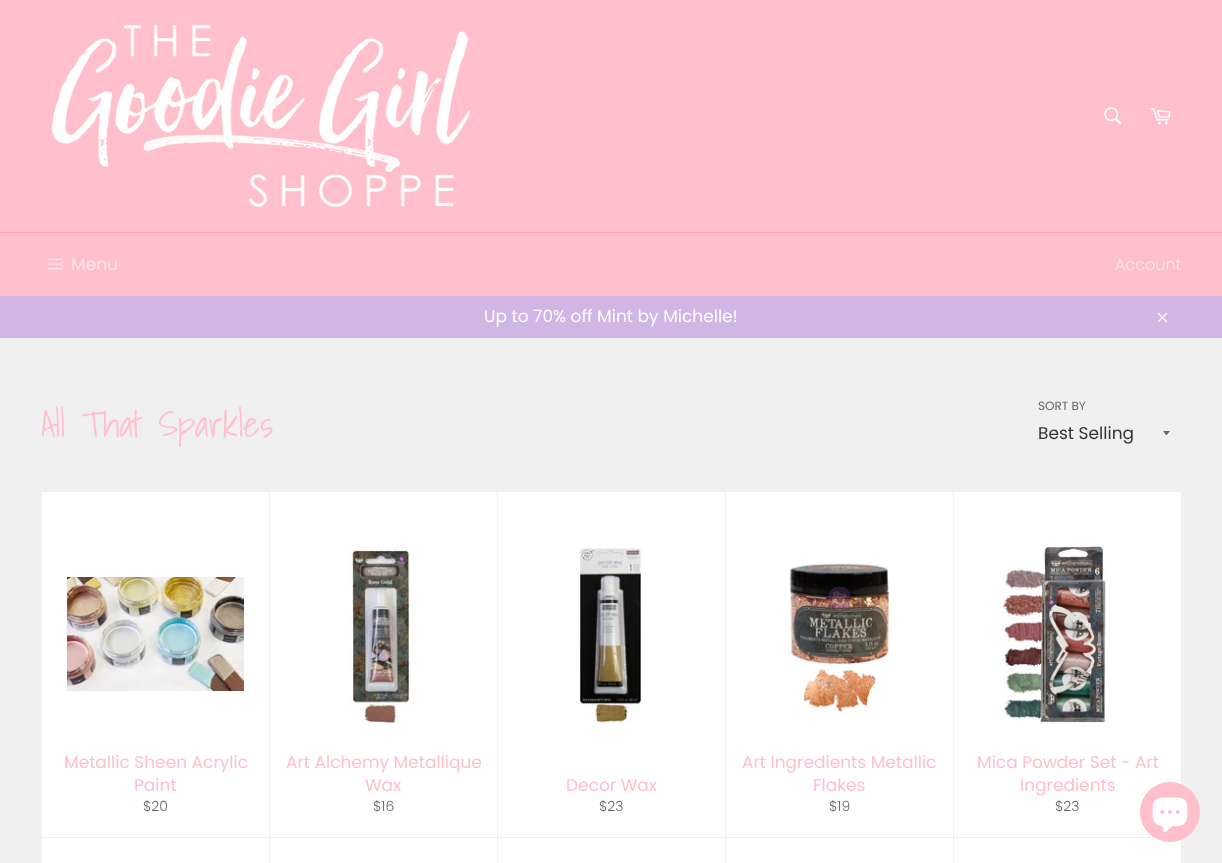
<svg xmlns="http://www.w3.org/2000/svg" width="1222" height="863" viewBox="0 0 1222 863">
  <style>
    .t1 { font: 17px Poppins; fill: #ffe6ea; }
    .t2 { font: 300 16px Poppins; fill: #ffe6ea; }
    .t3 { font: 17px Poppins; fill: #fff; }
    .t4 { font: 36px Shadows Into Light; fill: #ffc0cb; }
    .t5 { font: 12px Poppins; fill: #666; }
    .t6 { font: 17px Poppins; fill: #333; }
    .t7 { font: 17px Poppins; fill: #ffc0cb; }
    .t8 { font: 300 14px Poppins; fill: #666; }
  </style>
  <rect width="100%" height="100%" fill="#f0f0f0"/>
  <rect x="0" y="0" width="1222" height="232" fill="#ffc0cb"/>
  <image x="52" y="25" width="418" height="182" href="images/1.png"/>
  <image x="1104" y="107" width="18" height="18" href="images/2.png"/>
  <image x="1150" y="108" width="21" height="17" href="images/3.png"/>
  <rect x="0" y="233" width="1222" height="63" fill="#ffc0cb"/>
  <rect x="0" y="232" width="1222" height="1" fill="#ffa6b6"/>
  <image x="47" y="258" width="16" height="12" href="images/4.png"/>
  <text x="71" y="270" class="t1">Menu</text>
  <text x="1115" y="270" class="t2">Account</text>
  <rect x="0" y="296" width="1222" height="42" fill="#d0b5e5"/>
  <text x="484" y="322" class="t3">Up to 70% off Mint by Michelle!</text>
  <image x="1157" y="312" width="11" height="11" href="images/5.png"/>
  <text x="41" y="437" class="t4">All That Sparkles</text>
  <text x="1038" y="410" class="t5">SORT BY</text>
  <path d="M1163 431C1167.5 436.5 1165.5 436.5 1170 431Z" fill="#666"/>
  <text x="1038" y="439" class="t6">Best Selling</text>
  <rect x="42" y="492" width="227" height="345" fill="#fff"/>
  <image x="67" y="577" width="177" height="114" href="images/6.png"/>
  <text x="64" y="768" class="t7">Metallic Sheen Acrylic</text>
  <text x="134" y="791" class="t7">Paint</text>
  <text x="143" y="811" class="t8">$20</text>
  <rect x="270" y="492" width="227" height="345" fill="#fff"/>
  <image x="350" y="546" width="63" height="177" href="images/7.png"/>
  <text x="286" y="768" class="t7">Art Alchemy Metallique</text>
  <text x="365" y="791" class="t7">Wax</text>
  <text x="373" y="811" class="t8">$16</text>
  <rect x="498" y="492" width="227" height="345" fill="#fff"/>
  <image x="578" y="546" width="63" height="177" href="images/8.png"/>
  <text x="566" y="791" class="t7">Decor Wax</text>
  <text x="599" y="811" class="t8">$23</text>
  <rect x="726" y="492" width="227" height="345" fill="#fff"/>
  <image x="790" y="562" width="102" height="150" href="images/9.png"/>
  <text x="742" y="768" class="t7">Art Ingredients Metallic</text>
  <text x="813" y="791" class="t7">Flakes</text>
  <text x="829" y="811" class="t8">$19</text>
  <rect x="954" y="492" width="227" height="345" fill="#fff"/>
  <image x="1002" y="546" width="104" height="177" href="images/10.png"/>
  <text x="977" y="768" class="t7">Mica Powder Set - Art</text>
  <text x="1020" y="791" class="t7">Ingredients</text>
  <text x="1055" y="811" class="t8">$23</text>
  <rect x="42" y="838" width="227" height="25" fill="#fff"/>
  <rect x="270" y="838" width="227" height="25" fill="#fff"/>
  <rect x="498" y="838" width="227" height="25" fill="#fff"/>
  <rect x="726" y="838" width="227" height="25" fill="#fff"/>
  <rect x="954" y="838" width="227" height="25" fill="#fff"/>
  <circle cx="1170" cy="812" r="30" fill="#ffc0cb"/>
  <image x="1152" y="797" width="36" height="36" href="images/11.png"/>
</svg>
